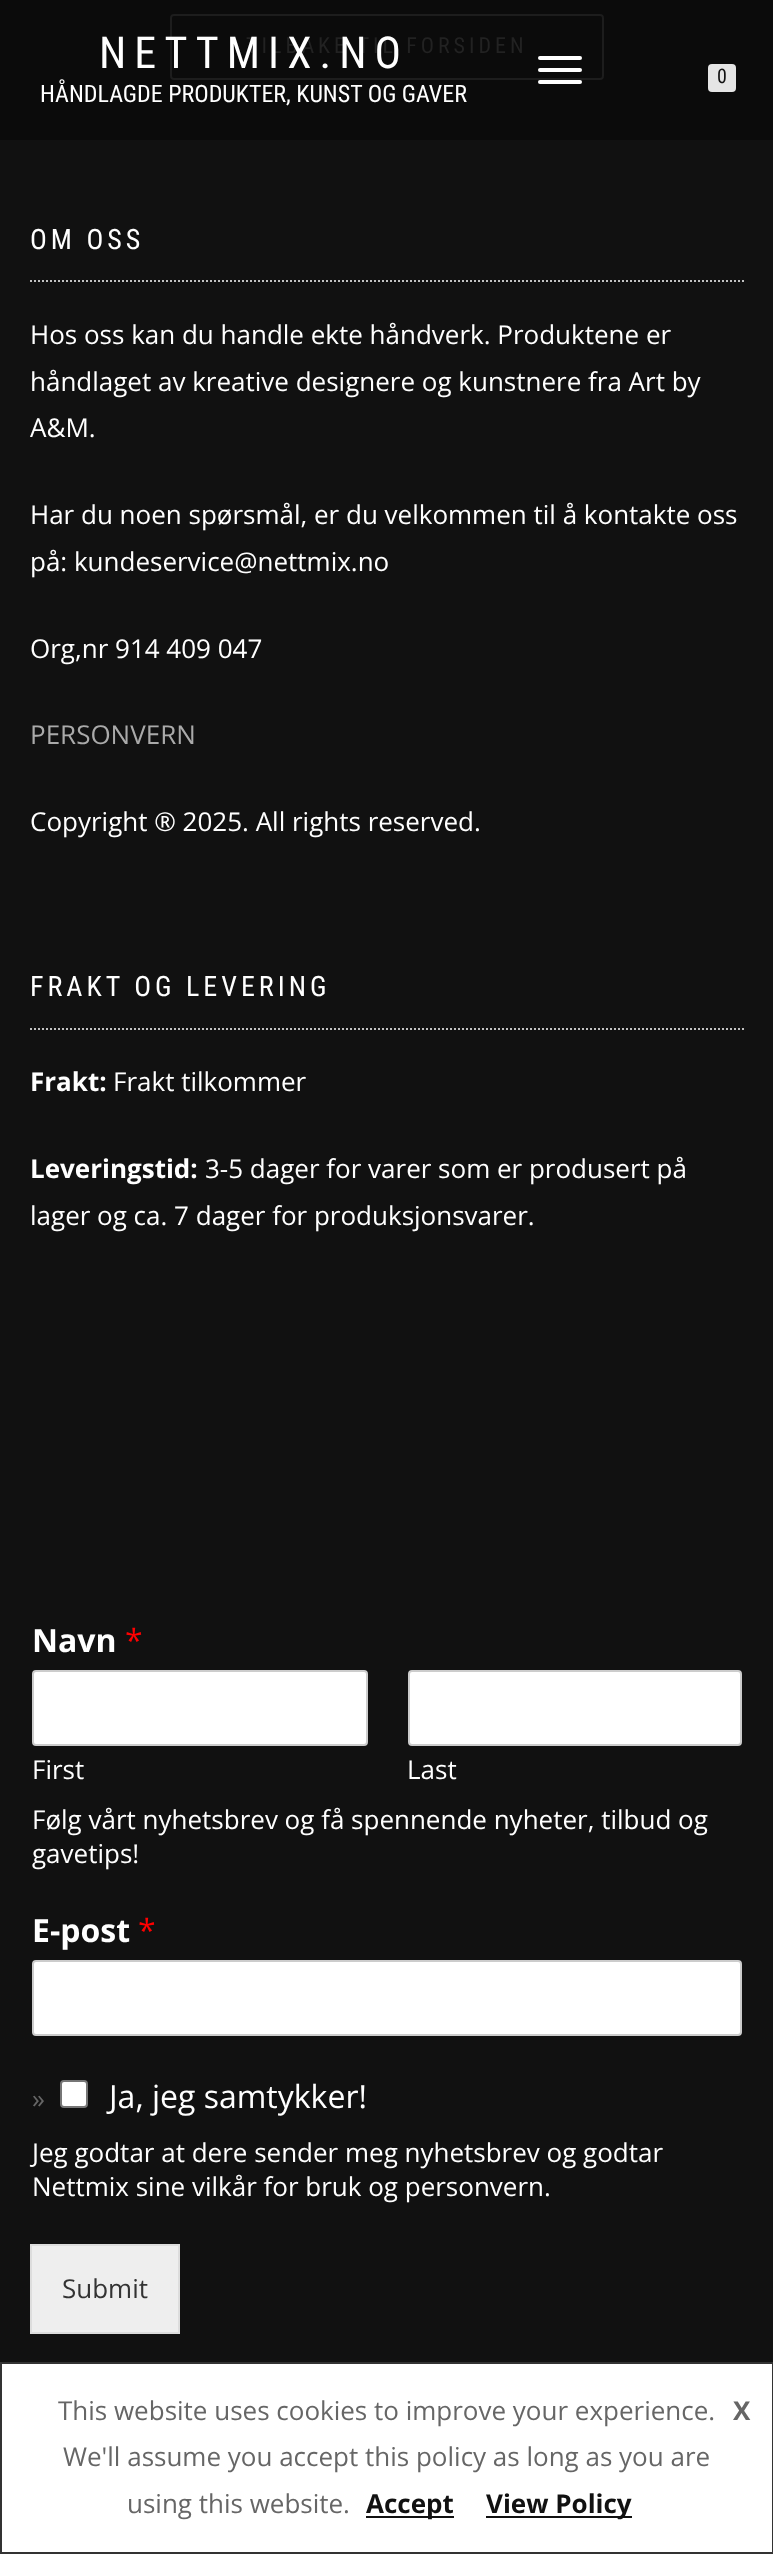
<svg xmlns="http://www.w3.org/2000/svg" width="773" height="2554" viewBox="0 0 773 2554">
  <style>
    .t1 { font: 22px Roboto Condensed; letter-spacing: 4px; fill: #222; }
    .t2 { font: 44px Roboto Condensed; letter-spacing: 8px; fill: #fff; }
    .t3 { font: 24px Roboto Condensed; fill: #fff; }
    .t4 { font: 20px Roboto Condensed; fill: #111; }
    .t5 { font: 28px Roboto Condensed; letter-spacing: 4px; fill: #fff; }
    .t6 { font: 26px Open Sans; fill: #fff; }
    .t7 { font: 26px Open Sans; fill: #aaa; }
    .t8 { font: bold 26px Open Sans; fill: #fff; }
    .t9 { font: bold 32px Open Sans; fill: #fff; }
    .t10 { font: 32px Open Sans; fill: #f00; }
    .t11 { font: 26px Open Sans; fill: #666; }
    .t12 { font: 32px Open Sans; fill: #fff; }
    .t13 { font: 26px Open Sans; fill: #333; }
    .t14 { font: bold 26px Open Sans; fill: #666; }
    .t15 { font: bold 26px Open Sans; fill: #111; }
  </style>
  <rect width="100%" height="100%" fill="#0b0b0b"/>
  <rect x="171" y="15" width="432" height="64" rx="3" fill="none" stroke="#1d1d1d" stroke-width="2"/>
  <text x="246" y="53" class="t1">TILBAKE TIL FORSIDEN</text>
  <text x="99" y="68" class="t2">NETTMIX.NO</text>
  <text x="40" y="102" class="t3">HÅNDLAGDE PRODUKTER, KUNST OG GAVER</text>
  <rect x="538" y="56" width="44" height="4" rx="2" fill="#fff"/>
  <rect x="538" y="68" width="44" height="4" rx="2" fill="#fff"/>
  <rect x="538" y="80" width="44" height="4" rx="2" fill="#fff"/>
  <rect x="708" y="64" width="28" height="28" rx="4" fill="#e5e5e5"/>
  <text x="717" y="83" class="t4">0</text>
  <rect x="0" y="140" width="773" height="2222" fill="#111"/>
  <path d="M30 281H744" fill="none" stroke="#c2c2c2" stroke-width="2" stroke-dasharray="2 2"/>
  <text x="30" y="249" class="t5">OM OSS</text>
  <text x="30" y="344" class="t6">Hos oss kan du handle ekte håndverk. Produktene er</text>
  <text x="30" y="391" class="t6">håndlaget av kreative designere og kunstnere fra Art by</text>
  <text x="30" y="437" class="t6">A&amp;M.</text>
  <text x="30" y="524" class="t6">Har du noen spørsmål, er du velkommen til å kontakte oss</text>
  <text x="30" y="571" class="t6">på: kundeservice@nettmix.no</text>
  <text x="30" y="658" class="t6">Org,nr 914 409 047</text>
  <text x="30" y="744" class="t7">PERSONVERN</text>
  <text x="30" y="831" class="t6">Copyright ® 2025. All rights reserved.</text>
  <path d="M30 1029H744" fill="none" stroke="#c2c2c2" stroke-width="2" stroke-dasharray="2 2"/>
  <text x="30" y="996" class="t5">FRAKT OG LEVERING</text>
  <text x="30" y="1091" class="t8">Frakt:</text>
  <text x="113" y="1091" class="t6">Frakt tilkommer</text>
  <text x="30" y="1178" class="t8">Leveringstid:</text>
  <text x="205" y="1178" class="t6">3-5 dager for varer som er produsert på</text>
  <text x="30" y="1225" class="t6">lager og ca. 7 dager for produksjonsvarer.</text>
  <text x="32" y="1652" class="t9">Navn</text>
  <text x="125" y="1652" class="t10">*</text>
  <rect x="33" y="1671" width="334" height="74" rx="3" fill="#fff" stroke="#ccc" stroke-width="2"/>
  <text x="32" y="1779" class="t6">First</text>
  <rect x="409" y="1671" width="332" height="74" rx="3" fill="#fff" stroke="#ccc" stroke-width="2"/>
  <text x="407" y="1779" class="t6">Last</text>
  <text x="32" y="1829" class="t6">Følg vårt nyhetsbrev og få spennende nyheter, tilbud og</text>
  <text x="32" y="1863" class="t6">gavetips!</text>
  <text x="32" y="1942" class="t9">E-post</text>
  <text x="138" y="1942" class="t10">*</text>
  <rect x="33" y="1961" width="708" height="74" rx="3" fill="#fff" stroke="#ccc" stroke-width="2"/>
  <text x="32" y="2108" class="t11">»</text>
  <rect x="61" y="2081" width="26" height="26" rx="3" fill="#fff" stroke="#767676" stroke-width="2"/>
  <text x="109" y="2108" class="t12">Ja, jeg samtykker!</text>
  <text x="32" y="2162" class="t6">Jeg godtar at dere sender meg nyhetsbrev og godtar</text>
  <text x="32" y="2196" class="t6">Nettmix sine vilkår for bruk og personvern.</text>
  <rect x="31" y="2245" width="148" height="88" fill="#eee" stroke="#ddd" stroke-width="2"/>
  <text x="62" y="2298" class="t13">Submit</text>
  <rect x="1" y="2363" width="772" height="190" fill="#fff" stroke="#333" stroke-width="2"/>
  <text x="58" y="2420" class="t11">This website uses cookies to improve your experience.</text>
  <text x="733" y="2420" class="t14">X</text>
  <text x="63" y="2466" class="t11">We'll assume you accept this policy as long as you are</text>
  <text x="127" y="2513" class="t11">using this website.</text>
  <rect x="366" y="2516" width="88" height="2" fill="#111"/>
  <text x="366" y="2513" class="t15">Accept</text>
  <rect x="486" y="2516" width="146" height="2" fill="#111"/>
  <text x="486" y="2513" class="t15">View Policy</text>
</svg>
